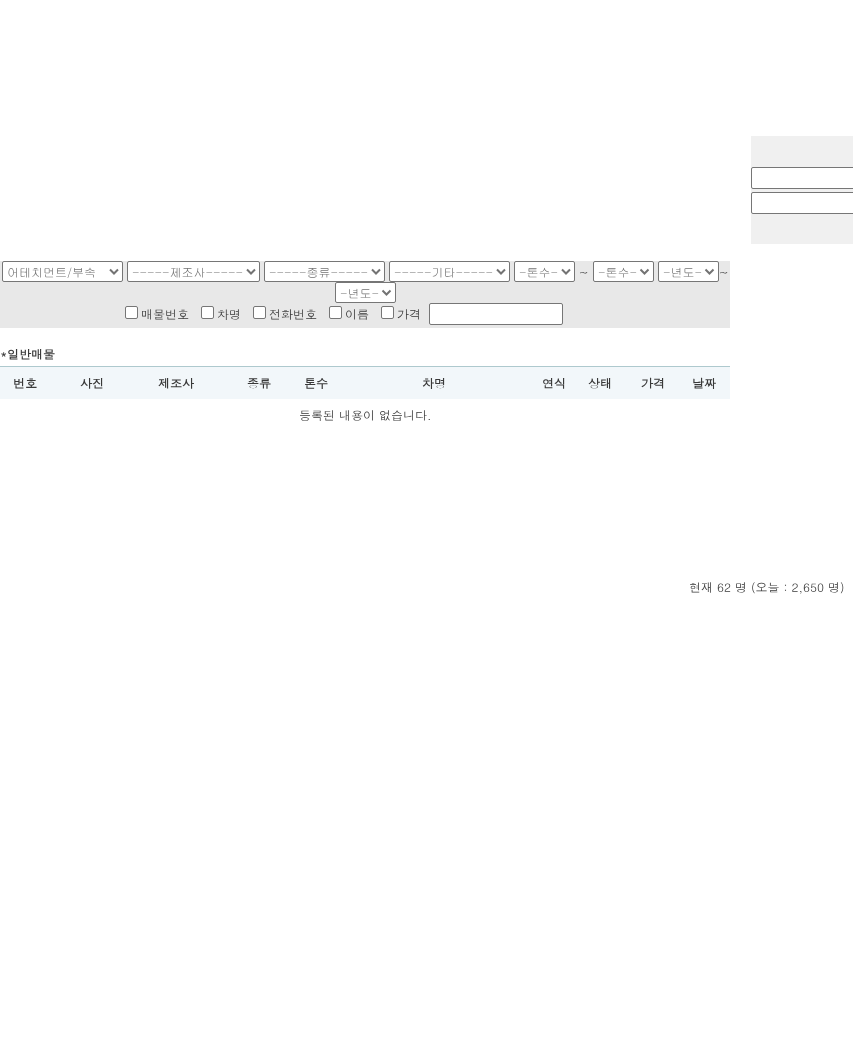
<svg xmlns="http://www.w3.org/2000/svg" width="853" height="1039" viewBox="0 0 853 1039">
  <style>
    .t1 { font: 12px Gulim; fill: #737373; }
    .t2 { font: 12px Dotum; fill: #393939; }
    .t3 { font: bold 12px Dotum; fill: #393939; }
  </style>
  <rect width="100%" height="100%" fill="#fff"/>
  <rect x="751" y="136" width="102" height="108" fill="#f0f0f0"/>
  <rect x="751.5" y="167.5" width="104" height="21" rx="1.5" fill="#fff" stroke="#767676"/>
  <rect x="751.5" y="192.5" width="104" height="21" rx="1.5" fill="#fff" stroke="#767676"/>
  <rect x="0" y="261" width="730" height="67" fill="#e8e8e8"/>
  <rect x="2.5" y="261.5" width="120" height="20" rx="1.5" fill="#fff" stroke="#767676"/>
  <path d="M110 269.5L114 273.5L118 269.5" fill="none" stroke="#737373" stroke-width="2"/>
  <text x="7" y="277" class="t1">어테치먼트/부속</text>
  <rect x="127.5" y="261.5" width="132" height="20" rx="1.5" fill="#fff" stroke="#767676"/>
  <path d="M247 269.5L251 273.5L255 269.5" fill="none" stroke="#737373" stroke-width="2"/>
  <text x="132" y="277" class="t1">-----제조사-----</text>
  <rect x="264.5" y="261.5" width="120" height="20" rx="1.5" fill="#fff" stroke="#767676"/>
  <path d="M372 269.5L376 273.5L380 269.5" fill="none" stroke="#737373" stroke-width="2"/>
  <text x="269" y="277" class="t1">-----종류-----</text>
  <rect x="389.5" y="261.5" width="120" height="20" rx="1.5" fill="#fff" stroke="#767676"/>
  <path d="M497 269.5L501 273.5L505 269.5" fill="none" stroke="#737373" stroke-width="2"/>
  <text x="394" y="277" class="t1">-----기타-----</text>
  <rect x="514.5" y="261.5" width="60" height="20" rx="1.5" fill="#fff" stroke="#767676"/>
  <path d="M562 269.5L566 273.5L570 269.5" fill="none" stroke="#737373" stroke-width="2"/>
  <text x="519" y="277" class="t1">-톤수-</text>
  <text x="579" y="277" class="t2">~</text>
  <rect x="593.5" y="261.5" width="60" height="20" rx="1.5" fill="#fff" stroke="#767676"/>
  <path d="M640.5 269.5L644.5 273.5L648.5 269.5" fill="none" stroke="#737373" stroke-width="2"/>
  <text x="598" y="277" class="t1">-톤수-</text>
  <rect x="658.5" y="261.5" width="60" height="20" rx="1.5" fill="#fff" stroke="#767676"/>
  <path d="M705.5 269.5L709.5 273.5L713.5 269.5" fill="none" stroke="#737373" stroke-width="2"/>
  <text x="663" y="277" class="t1">-년도-</text>
  <text x="719" y="277" class="t2">~</text>
  <rect x="335.5" y="282.5" width="60" height="20" rx="1.5" fill="#fff" stroke="#767676"/>
  <path d="M382.5 290.5L386.5 294.5L390.5 290.5" fill="none" stroke="#737373" stroke-width="2"/>
  <text x="340" y="298" class="t1">-년도-</text>
  <rect x="125.5" y="306.5" width="12" height="12" rx="1.5" fill="#fff" stroke="#767676"/>
  <text x="141" y="319" class="t2">매물번호</text>
  <rect x="201.5" y="306.5" width="12" height="12" rx="1.5" fill="#fff" stroke="#767676"/>
  <text x="217" y="319" class="t2">차명</text>
  <rect x="253.5" y="306.5" width="12" height="12" rx="1.5" fill="#fff" stroke="#767676"/>
  <text x="269" y="319" class="t2">전화번호</text>
  <rect x="329.5" y="306.5" width="12" height="12" rx="1.5" fill="#fff" stroke="#767676"/>
  <text x="345" y="319" class="t2">이름</text>
  <rect x="381.5" y="306.5" width="12" height="12" rx="1.5" fill="#fff" stroke="#767676"/>
  <text x="397" y="319" class="t2">가격</text>
  <rect x="429.5" y="303.5" width="133" height="21" rx="1.5" fill="#fff" stroke="#767676"/>
  <text x="0" y="359" class="t3">*일반매물</text>
  <rect x="0" y="366" width="730" height="1" fill="#aec9ce"/>
  <rect x="0" y="367" width="730" height="32" fill="#f2f7fa"/>
  <text x="13" y="388" class="t3">번호</text>
  <text x="80" y="388" class="t3">사진</text>
  <text x="158" y="388" class="t3">제조사</text>
  <text x="247" y="388" class="t3">종류</text>
  <text x="304" y="388" class="t3">톤수</text>
  <text x="422" y="388" class="t3">차명</text>
  <text x="542" y="388" class="t3">연식</text>
  <text x="588" y="388" class="t3">상태</text>
  <text x="641" y="388" class="t3">가격</text>
  <text x="692" y="388" class="t3">날짜</text>
  <text x="299" y="420" class="t2">등록된 내용이 없습니다.</text>
  <text x="689" y="592" class="t2">현재 62 명 (오늘 : 2,650 명)</text>
</svg>
